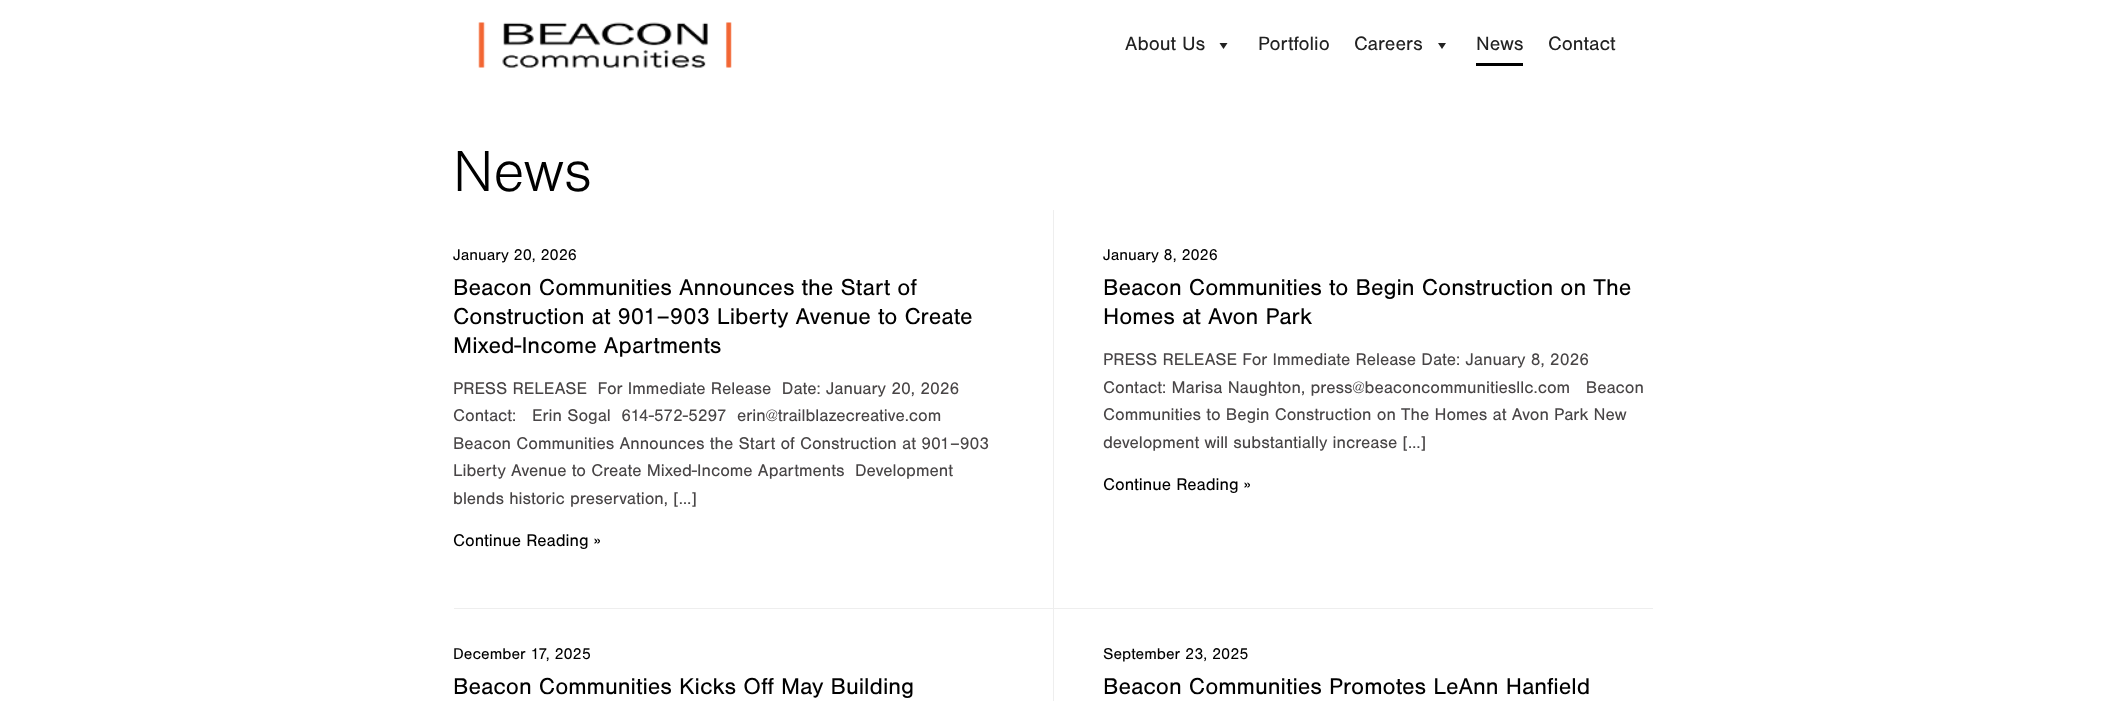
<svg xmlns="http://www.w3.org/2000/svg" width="2106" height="701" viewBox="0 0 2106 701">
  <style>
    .t1 { font: 20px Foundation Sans; fill: #222; }
    .t2 { font: 300 60px Foundation Sans; fill: #000; }
    .t3 { font: 16.25px Foundation Sans; fill: #000; }
    .t4 { font: 23.75px Foundation Sans; fill: #000; }
    .t5 { font: 17.5px Foundation Sans; fill: #484546; }
    .t6 { font: 17.5px Foundation Sans; fill: #000; }
  </style>
  <rect width="100%" height="100%" fill="#fff"/>
  <image x="478" y="22" width="254" height="46" href="images/1.png"/>
  <text x="1125" y="50" class="t1">About Us</text>
  <path d="M1227.5 43L1223.5 49L1219.5 43Z" fill="#222"/>
  <text x="1258" y="50" class="t1">Portfolio</text>
  <text x="1354" y="50" class="t1">Careers</text>
  <path d="M1446 43L1442 49L1438 43Z" fill="#222"/>
  <text x="1476" y="50" class="t1">News</text>
  <rect x="1476" y="63" width="47" height="3" fill="#000"/>
  <text x="1548" y="50" class="t1">Contact</text>
  <text x="453" y="191" class="t2">News</text>
  <rect x="1053" y="210" width="1" height="398" fill="#eee"/>
  <text x="453" y="260" class="t3">January 20, 2026</text>
  <text x="453" y="295" class="t4">Beacon Communities Announces the Start of</text>
  <text x="453" y="324" class="t4">Construction at 901–903 Liberty Avenue to Create</text>
  <text x="453" y="353" class="t4">Mixed-Income Apartments</text>
  <text x="453" y="394" class="t5" xml:space="preserve">PRESS RELEASE  For Immediate Release  Date: January 20, 2026</text>
  <text x="453" y="421" class="t5" xml:space="preserve">Contact:   Erin Sogal  614-572-5297  erin@trailblazecreative.com</text>
  <text x="453" y="449" class="t5">Beacon Communities Announces the Start of Construction at 901–903</text>
  <text x="453" y="476" class="t5" xml:space="preserve">Liberty Avenue to Create Mixed-Income Apartments  Development</text>
  <text x="453" y="504" class="t5">blends historic preservation, […]</text>
  <text x="453" y="546" class="t6">Continue Reading »</text>
  <text x="1103" y="260" class="t3">January 8, 2026</text>
  <text x="1103" y="295" class="t4">Beacon Communities to Begin Construction on The</text>
  <text x="1103" y="324" class="t4">Homes at Avon Park</text>
  <text x="1103" y="365" class="t5">PRESS RELEASE For Immediate Release Date: January 8, 2026</text>
  <text x="1103" y="393" class="t5" xml:space="preserve">Contact: Marisa Naughton, press@beaconcommunitiesllc.com   Beacon</text>
  <text x="1103" y="420" class="t5">Communities to Begin Construction on The Homes at Avon Park New</text>
  <text x="1103" y="448" class="t5">development will substantially increase […]</text>
  <text x="1103" y="490" class="t6">Continue Reading »</text>
  <rect x="454" y="608" width="600" height="1" fill="#eee"/>
  <rect x="1053" y="608" width="1" height="93" fill="#eee"/>
  <text x="453" y="659" class="t3">December 17, 2025</text>
  <text x="453" y="694" class="t4">Beacon Communities Kicks Off May Building</text>
  <rect x="1053" y="608" width="600" height="1" fill="#eee"/>
  <text x="1103" y="659" class="t3">September 23, 2025</text>
  <text x="1103" y="694" class="t4">Beacon Communities Promotes LeAnn Hanfield</text>
</svg>
